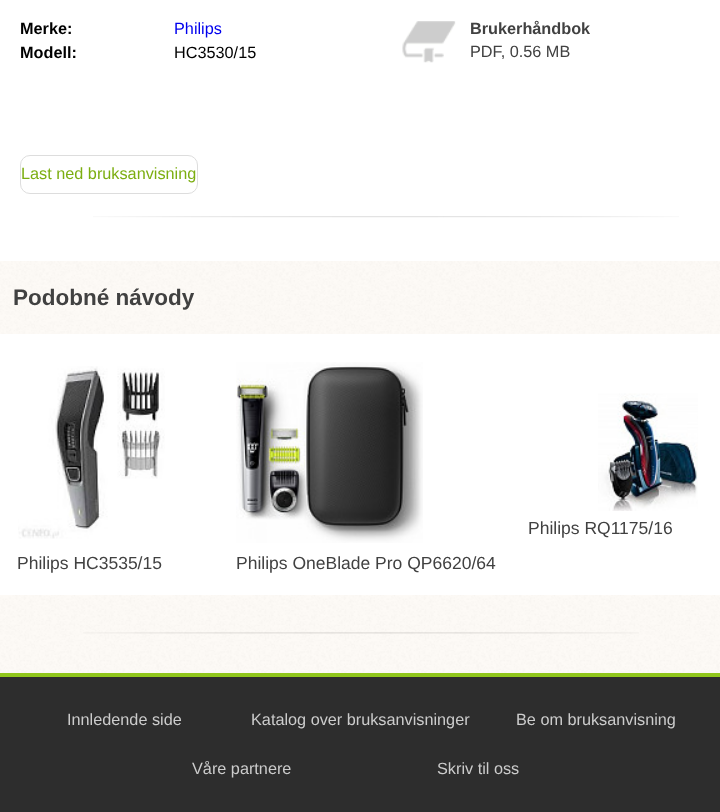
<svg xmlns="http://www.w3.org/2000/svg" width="720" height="812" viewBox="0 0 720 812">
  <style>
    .t1 { font: bold 16.25px Liberation Sans; fill: #000; }
    .t2 { font: 16.25px Liberation Sans; fill: #00e; }
    .t3 { font: 16.25px Liberation Sans; fill: #000; }
    .t4 { font: bold 16.25px Liberation Sans; fill: #414141; }
    .t5 { font: 16.25px Liberation Sans; fill: #414141; }
    .t6 { font: 16.25px Liberation Sans; fill: #7cae11; }
    .t7 { font: bold 22.5px Liberation Sans; fill: #414141; }
    .t8 { font: 17.5px Liberation Sans; fill: #414141; }
    .t9 { font: 16.25px Liberation Sans; fill: #ccc; }
  </style>
  <rect width="100%" height="100%" fill="#fff"/>
  <image x="0" y="261" width="720" height="412" href="images/1.png"/>
  <image x="93" y="216" width="586" height="2" href="images/2.png"/>
  <text x="20" y="34" class="t1">Merke:</text>
  <text x="174" y="34" class="t2">Philips</text>
  <text x="20" y="58" class="t1">Modell:</text>
  <text x="174" y="58" class="t3">HC3530/15</text>
  <image x="402" y="21" width="54" height="42" href="images/3.png"/>
  <text x="470" y="34" class="t4">Brukerhåndbok</text>
  <text x="470" y="57" class="t5">PDF, 0.56 MB</text>
  <rect x="20.5" y="155.5" width="177" height="38" rx="9.5" fill="none" stroke="#ddd"/>
  <text x="21" y="179" class="t6">Last ned bruksanvisning</text>
  <text x="13" y="305" class="t7">Podobné návody</text>
  <rect x="0" y="334" width="720" height="261" fill="#fff"/>
  <image x="598" y="393" width="100" height="118" href="images/4.png"/>
  <text x="528" y="534" class="t8">Philips RQ1175/16</text>
  <image x="18" y="366" width="147" height="173" href="images/5.png"/>
  <text x="17" y="569" class="t8">Philips HC3535/15</text>
  <image x="236" y="362" width="187" height="181" href="images/6.png"/>
  <text x="236" y="569" class="t8">Philips OneBlade Pro QP6620/64</text>
  <image x="83" y="632" width="556" height="2" href="images/7.png"/>
  <rect x="0" y="677" width="720" height="135" fill="#2d2d2d"/>
  <rect x="0" y="673" width="720" height="4" fill="#90c61b"/>
  <text x="67" y="725" class="t9">Innledende side</text>
  <text x="251" y="725" class="t9">Katalog over bruksanvisninger</text>
  <text x="516" y="725" class="t9">Be om bruksanvisning</text>
  <text x="192" y="774" class="t9">Våre partnere</text>
  <text x="437" y="774" class="t9">Skriv til oss</text>
</svg>
